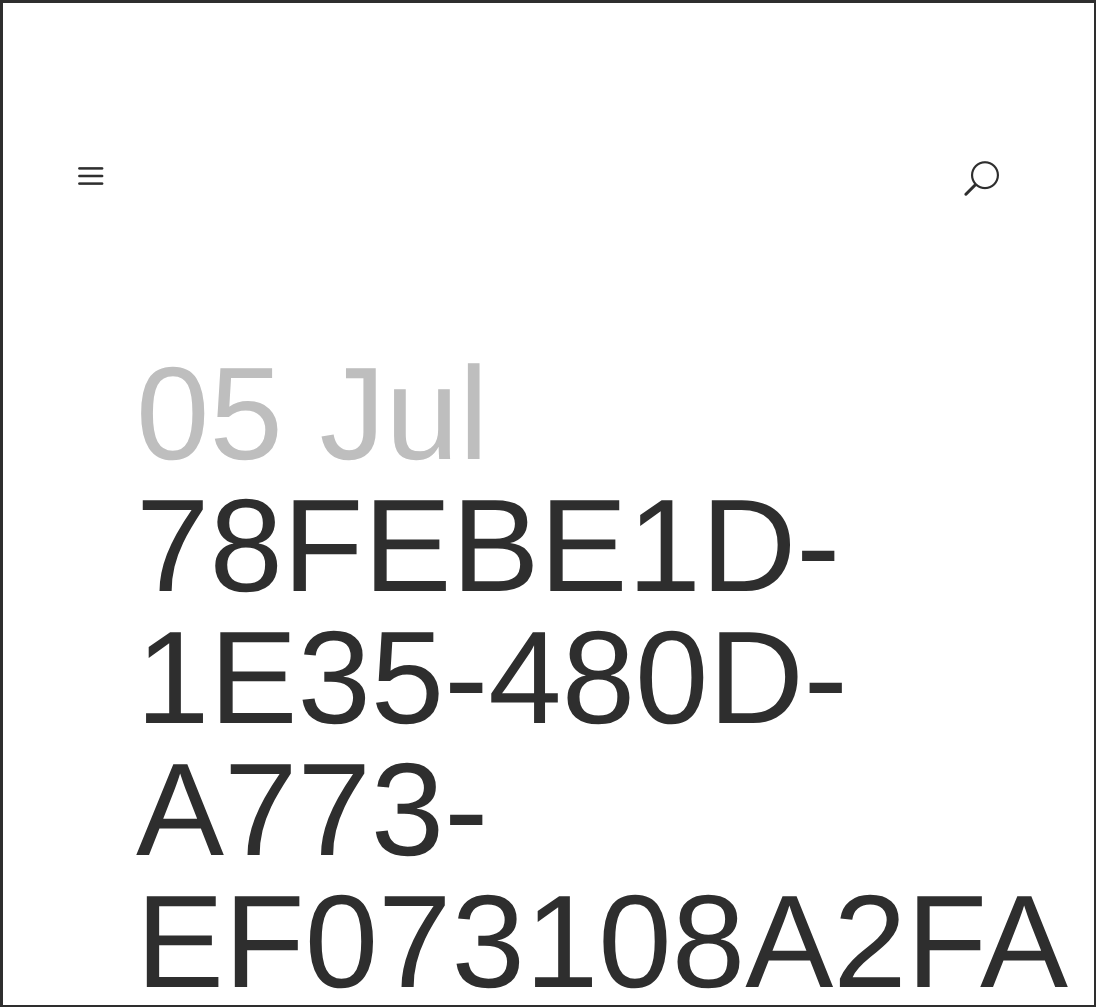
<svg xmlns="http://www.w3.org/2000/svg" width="1096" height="1007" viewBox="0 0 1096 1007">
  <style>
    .t1 { font: 132px Liberation Sans; fill: #bebebe; }
    .t2 { font: 132px Liberation Sans; fill: #2e2e2e; }
  </style>
  <rect width="100%" height="100%" fill="#fff"/>
  <image x="78" y="167" width="26" height="18" href="images/1.png"/>
  <image x="964" y="161" width="35" height="35" href="images/2.png"/>
  <rect x="0" y="0" width="3" height="1007" fill="#2e2e2e"/>
  <rect x="1094" y="0" width="2" height="1007" fill="#2e2e2e"/>
  <rect x="0" y="0" width="1096" height="3" fill="#2e2e2e"/>
  <text x="136" y="459" class="t1">05 Jul</text>
  <text x="136" y="591" class="t2">78FEBE1D-</text>
  <text x="136" y="723" class="t2">1E35-480D-</text>
  <text x="136" y="855" class="t2">A773-</text>
  <text x="136" y="987" class="t2">EF073108A2FA</text>
  <rect x="0" y="1005" width="1096" height="2" fill="#2e2e2e"/>
</svg>
